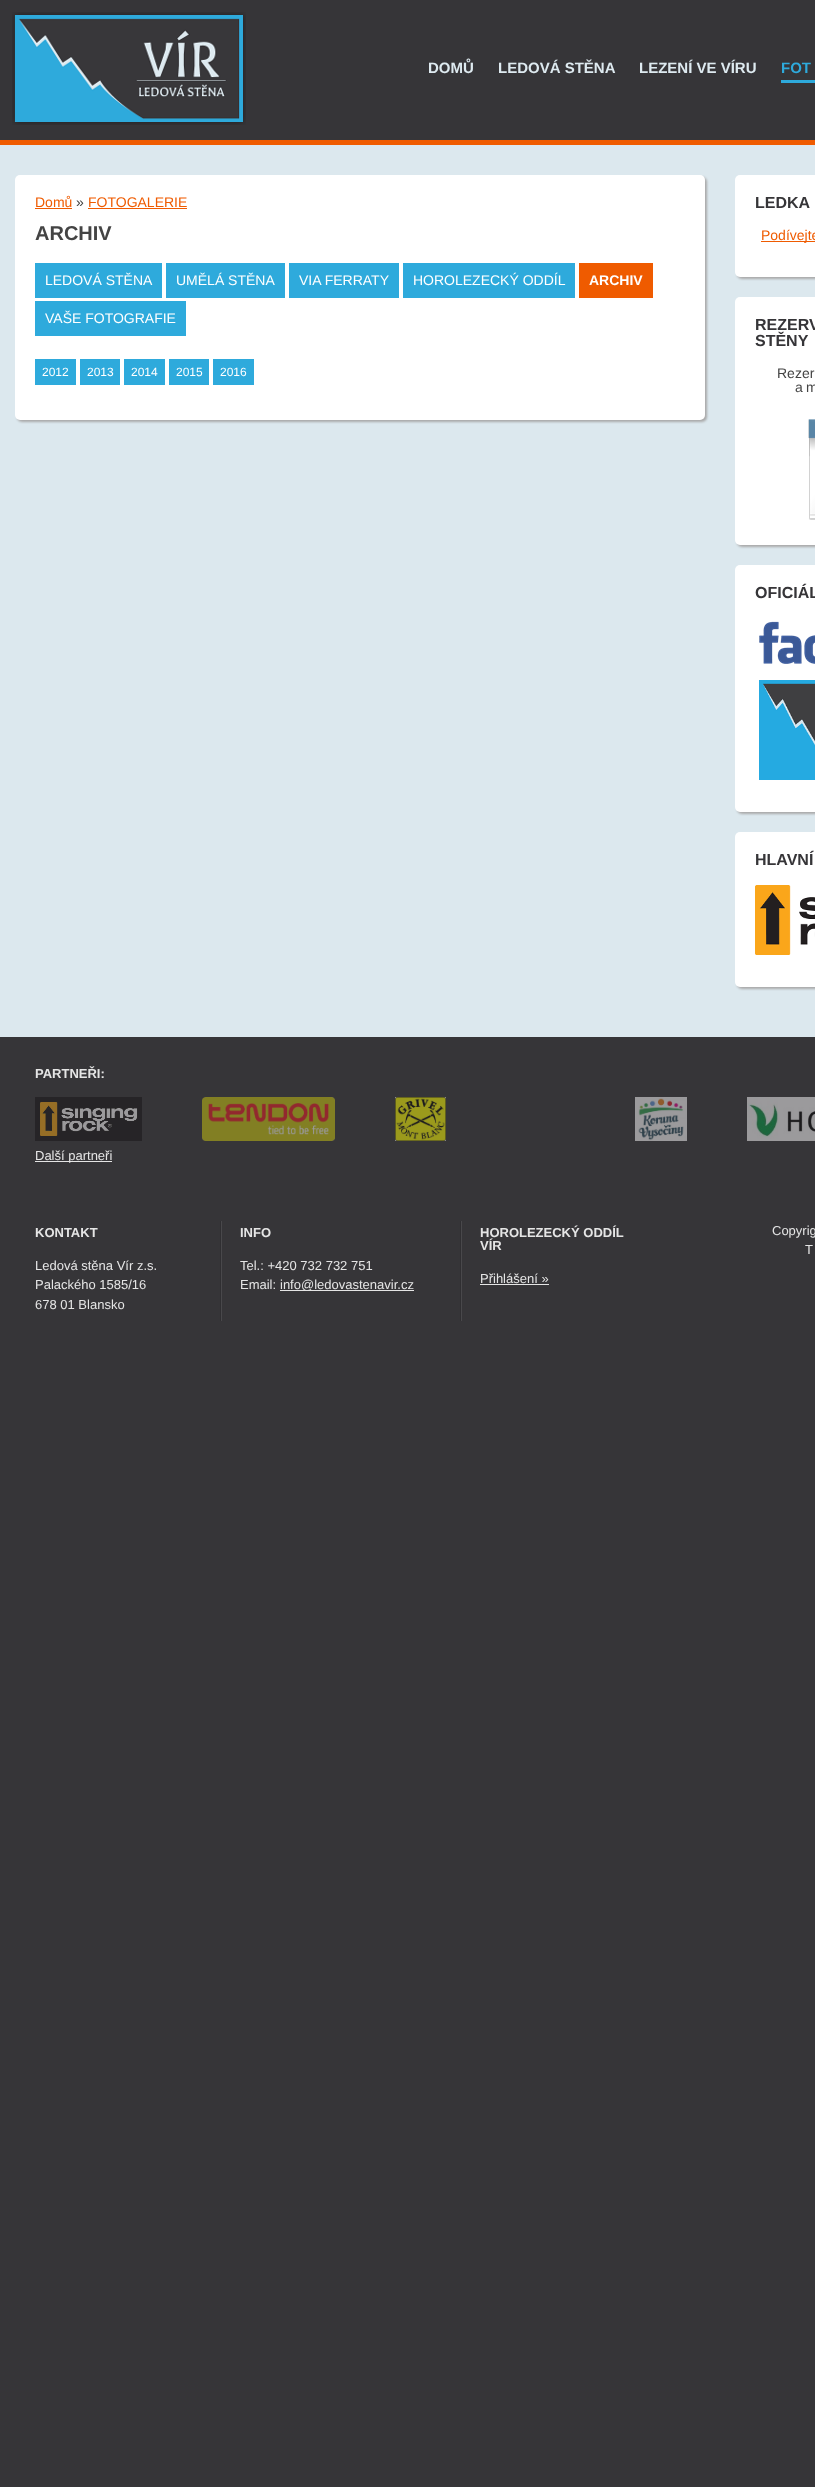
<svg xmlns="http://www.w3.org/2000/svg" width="815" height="2487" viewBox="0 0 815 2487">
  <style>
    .t1 { font: bold 15px Liberation Sans; fill: #deeaf0; }
    .t2 { font: bold 15px Liberation Sans; fill: #2eaadc; }
    .t3 { font: 14px Liberation Sans; fill: #ef5b00; }
    .t4 { font: 14px Liberation Sans; fill: #444; }
    .t5 { font: bold 20px Liberation Sans; fill: #444; }
    .t6 { font: 14px Liberation Sans; fill: #fff; }
    .t7 { font: bold 14px Liberation Sans; fill: #fff; }
    .t8 { font: 12px Liberation Sans; fill: #fff; }
    .t9 { font: bold 16px Liberation Sans; fill: #363538; }
    .t10 { font: bold 13px Liberation Sans; fill: #e5e5e5; }
    .t11 { font: 13px Liberation Sans; fill: #e5e5e5; }
  </style>
  <rect width="100%" height="100%" fill="#363538"/>
  <rect x="0" y="140" width="815" height="5" fill="#ef5b00"/>
  <image x="12" y="12" width="234" height="113" href="images/1.png"/>
  <text x="428" y="73" class="t1">DOMŮ</text>
  <text x="498" y="73" class="t1">LEDOVÁ STĚNA</text>
  <text x="639" y="73" class="t1">LEZENÍ VE VÍRU</text>
  <rect x="781" y="80" width="34" height="3" fill="#2eaadc"/>
  <text x="781" y="73" class="t2">FOT</text>
  <rect x="0" y="145" width="815" height="892" fill="#dce8ee"/>
  <rect x="17" y="177" width="690" height="245" rx="5" fill="#aaa" filter="blur(1px)"/>
  <rect x="15" y="175" width="690" height="245" rx="5" fill="#fff"/>
  <text x="35" y="207" class="t3">Domů</text>
  <rect x="35" y="208" width="37" height="1" fill="#ef5b00"/>
  <text x="76" y="207" class="t4">»</text>
  <text x="88" y="207" class="t3">FOTOGALERIE</text>
  <rect x="88" y="208" width="99" height="1" fill="#ef5b00"/>
  <text x="35" y="240" class="t5">ARCHIV</text>
  <rect x="35" y="263" width="127" height="35" fill="#2eaadc"/>
  <text x="45" y="285" class="t6">LEDOVÁ STĚNA</text>
  <rect x="166" y="263" width="119" height="35" fill="#2eaadc"/>
  <text x="176" y="285" class="t6">UMĚLÁ STĚNA</text>
  <rect x="289" y="263" width="110" height="35" fill="#2eaadc"/>
  <text x="299" y="285" class="t6">VIA FERRATY</text>
  <rect x="403" y="263" width="172" height="35" fill="#2eaadc"/>
  <text x="413" y="285" class="t6">HOROLEZECKÝ ODDÍL</text>
  <rect x="579" y="263" width="74" height="35" fill="#ef5b00"/>
  <text x="589" y="285" class="t7">ARCHIV</text>
  <rect x="35" y="301" width="151" height="35" fill="#2eaadc"/>
  <text x="45" y="323" class="t6">VAŠE FOTOGRAFIE</text>
  <rect x="35" y="359" width="41" height="26" fill="#2eaadc"/>
  <text x="42" y="376" class="t8">2012</text>
  <rect x="80" y="359" width="40" height="26" fill="#2eaadc"/>
  <text x="87" y="376" class="t8">2013</text>
  <rect x="124" y="359" width="41" height="26" fill="#2eaadc"/>
  <text x="131" y="376" class="t8">2014</text>
  <rect x="169" y="359" width="40" height="26" fill="#2eaadc"/>
  <text x="176" y="376" class="t8">2015</text>
  <rect x="213" y="359" width="41" height="26" fill="#2eaadc"/>
  <text x="220" y="376" class="t8">2016</text>
  <rect x="737" y="177" width="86" height="102" rx="5" fill="#aaa" filter="blur(1px)"/>
  <rect x="735" y="175" width="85" height="102" rx="5" fill="#fff"/>
  <text x="755" y="208" class="t9">LEDKA</text>
  <rect x="761" y="241" width="54" height="1" fill="#ef5b00"/>
  <text x="761" y="240" class="t3">Podívejte</text>
  <rect x="737" y="299" width="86" height="248" rx="5" fill="#aaa" filter="blur(1px)"/>
  <rect x="735" y="297" width="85" height="248" rx="5" fill="#fff"/>
  <text x="755" y="330" class="t9">REZERV</text>
  <text x="755" y="346" class="t9">STĚNY</text>
  <text x="777" y="378" class="t4">Rezer</text>
  <text x="795" y="392" class="t4">a</text>
  <text x="806" y="392" class="t4">m</text>
  <image x="808" y="419" width="7" height="101" href="images/2.png"/>
  <rect x="737" y="567" width="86" height="247" rx="5" fill="#aaa" filter="blur(1px)"/>
  <rect x="735" y="565" width="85" height="247" rx="5" fill="#fff"/>
  <text x="755" y="598" class="t9">OFICIÁL</text>
  <image x="759" y="621" width="56" height="43" href="images/3.png"/>
  <image x="759" y="680" width="56" height="100" href="images/4.png"/>
  <rect x="737" y="834" width="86" height="155" rx="5" fill="#aaa" filter="blur(1px)"/>
  <rect x="735" y="832" width="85" height="155" rx="5" fill="#fff"/>
  <text x="755" y="865" class="t9">HLAVNÍ</text>
  <image x="755" y="885" width="60" height="70" href="images/5.png"/>
  <text x="35" y="1078" class="t10">PARTNEŘI:</text>
  <image x="35" y="1097" width="107" height="44" href="images/6.png"/>
  <image x="202" y="1097" width="133" height="44" href="images/7.png"/>
  <image x="395" y="1097" width="51" height="44" href="images/8.png"/>
  <image x="635" y="1097" width="52" height="44" href="images/9.png"/>
  <image x="747" y="1097" width="68" height="44" href="images/10.png"/>
  <rect x="35" y="1161" width="77" height="1" fill="#e5e5e5"/>
  <text x="35" y="1160" class="t11">Další partneři</text>
  <text x="35" y="1237" class="t10">KONTAKT</text>
  <text x="35" y="1270" class="t11">Ledová stěna Vír z.s.</text>
  <text x="35" y="1289" class="t11">Palackého 1585/16</text>
  <text x="35" y="1309" class="t11">678 01 Blansko</text>
  <image x="220" y="1221" width="2" height="100" href="images/11.png"/>
  <text x="240" y="1237" class="t10">INFO</text>
  <text x="240" y="1270" class="t11">Tel.: +420 732 732 751</text>
  <text x="240" y="1289" class="t11">Email:</text>
  <rect x="280" y="1290" width="134" height="1" fill="#e5e5e5"/>
  <text x="280" y="1289" class="t11">info@ledovastenavir.cz</text>
  <image x="460" y="1221" width="2" height="100" href="images/11.png"/>
  <text x="480" y="1237" class="t10">HOROLEZECKÝ ODDÍL</text>
  <text x="480" y="1250" class="t10">VÍR</text>
  <text x="480" y="1283" class="t11">Přihlášení »</text>
  <rect x="480" y="1284" width="69" height="1" fill="#e5e5e5"/>
  <text x="772" y="1235" class="t11">Copyrig</text>
  <text x="805" y="1254" class="t11">T</text>
</svg>
